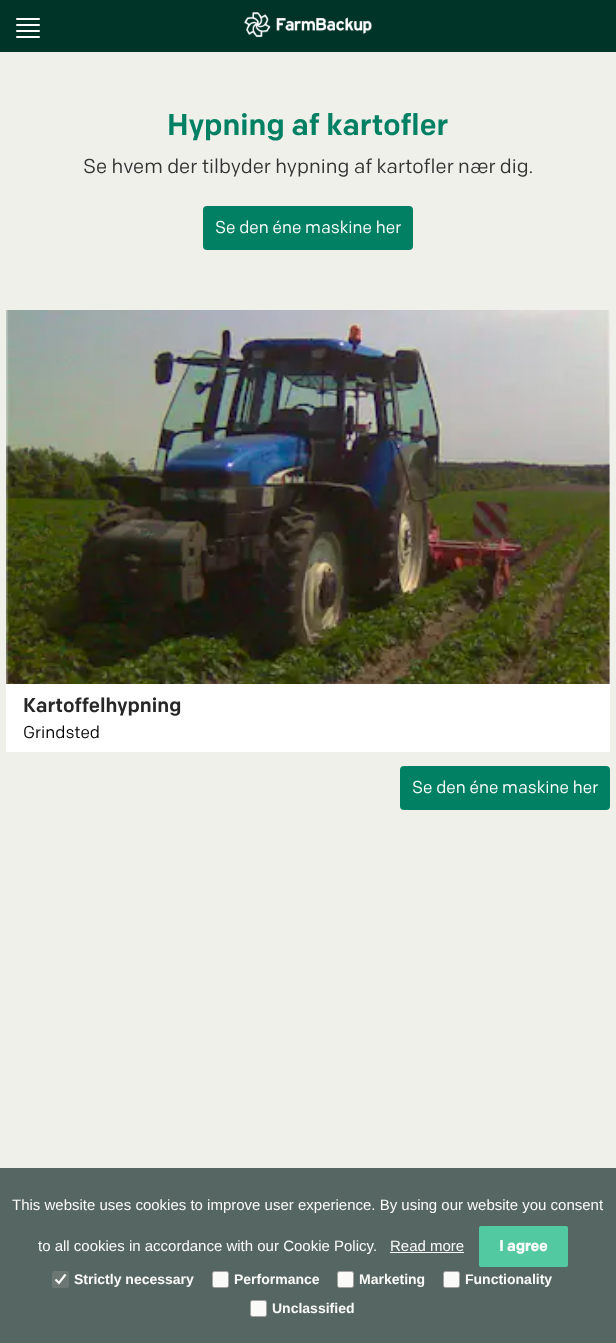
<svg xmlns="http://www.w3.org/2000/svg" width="616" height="1343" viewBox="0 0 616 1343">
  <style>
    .t1 { font: 500 30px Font; fill: #028063; }
    .t2 { font: 20px Font; fill: #333; }
    .t3 { font: 17px Font; fill: #fff; }
    .t4 { font: 500 20px Font; fill: #272727; }
    .t5 { font: 17px Font; fill: #000; }
    .t6 { font: 15px Liberation Sans; fill: #fafaf8; }
    .t7 { font: bold 15px Font; fill: #fafaf8; }
    .t8 { font: bold 14px Liberation Sans; fill: #fafaf8; }
  </style>
  <rect width="100%" height="100%" fill="#f0f0eb"/>
  <rect x="0" y="0" width="616" height="52" fill="#013428"/>
  <rect x="16" y="18" width="24" height="2" rx="1" fill="#fff"/>
  <rect x="16" y="24" width="24" height="2" rx="1" fill="#fff"/>
  <rect x="16" y="30" width="24" height="2" rx="1" fill="#fff"/>
  <rect x="16" y="36" width="24" height="2" rx="1" fill="#fff"/>
  <image x="244" y="12" width="128" height="26" href="images/1.png"/>
  <text x="167" y="135" class="t1">Hypning af kartofler</text>
  <text x="83" y="173" class="t2">Se hvem der tilbyder hypning af kartofler nær dig.</text>
  <rect x="203" y="206" width="210" height="44" rx="4" fill="#028063"/>
  <text x="215" y="233" class="t3">Se den éne maskine her</text>
  <rect x="6" y="310" width="604" height="442" fill="#fff"/>
  <image x="6" y="310" width="604" height="374" href="images/2.png"/>
  <text x="23" y="712" class="t4">Kartoffelhypning</text>
  <text x="23" y="738" class="t5">Grindsted</text>
  <rect x="400" y="766" width="210" height="44" rx="4" fill="#028063"/>
  <text x="412" y="793" class="t3">Se den éne maskine her</text>
  <rect x="0" y="1168" width="616" height="175" fill="#566662"/>
  <text x="12" y="1210" class="t6">This website uses cookies to improve user experience. By using our website you consent</text>
  <text x="38" y="1251" class="t6">to all cookies in accordance with our Cookie Policy.</text>
  <text x="390" y="1251" class="t6">Read more</text>
  <rect x="390" y="1252" width="74" height="1" fill="#fafaf8"/>
  <rect x="479" y="1226" width="89" height="41" rx="2" fill="#53c9a2"/>
  <text x="499" y="1251" class="t7">I agree</text>
  <rect x="52" y="1271" width="17" height="17" rx="2.5" fill="#6c7774"/>
  <path d="M55.5 1279.5L59 1283L65.5 1274.5" fill="none" stroke="#fafaf8" stroke-width="2.1"/>
  <text x="74" y="1284" class="t8">Strictly necessary</text>
  <rect x="212.5" y="1271.5" width="16" height="16" rx="2" fill="#fafaf8" stroke="#a0a09e"/>
  <text x="234" y="1284" class="t8">Performance</text>
  <rect x="337.5" y="1271.5" width="16" height="16" rx="2" fill="#fafaf8" stroke="#a0a09e"/>
  <text x="359" y="1284" class="t8">Marketing</text>
  <rect x="443.5" y="1271.5" width="16" height="16" rx="2" fill="#fafaf8" stroke="#a0a09e"/>
  <text x="465" y="1284" class="t8">Functionality</text>
  <rect x="250.5" y="1300.5" width="16" height="16" rx="2" fill="#fafaf8" stroke="#a0a09e"/>
  <text x="272" y="1313" class="t8">Unclassified</text>
</svg>
